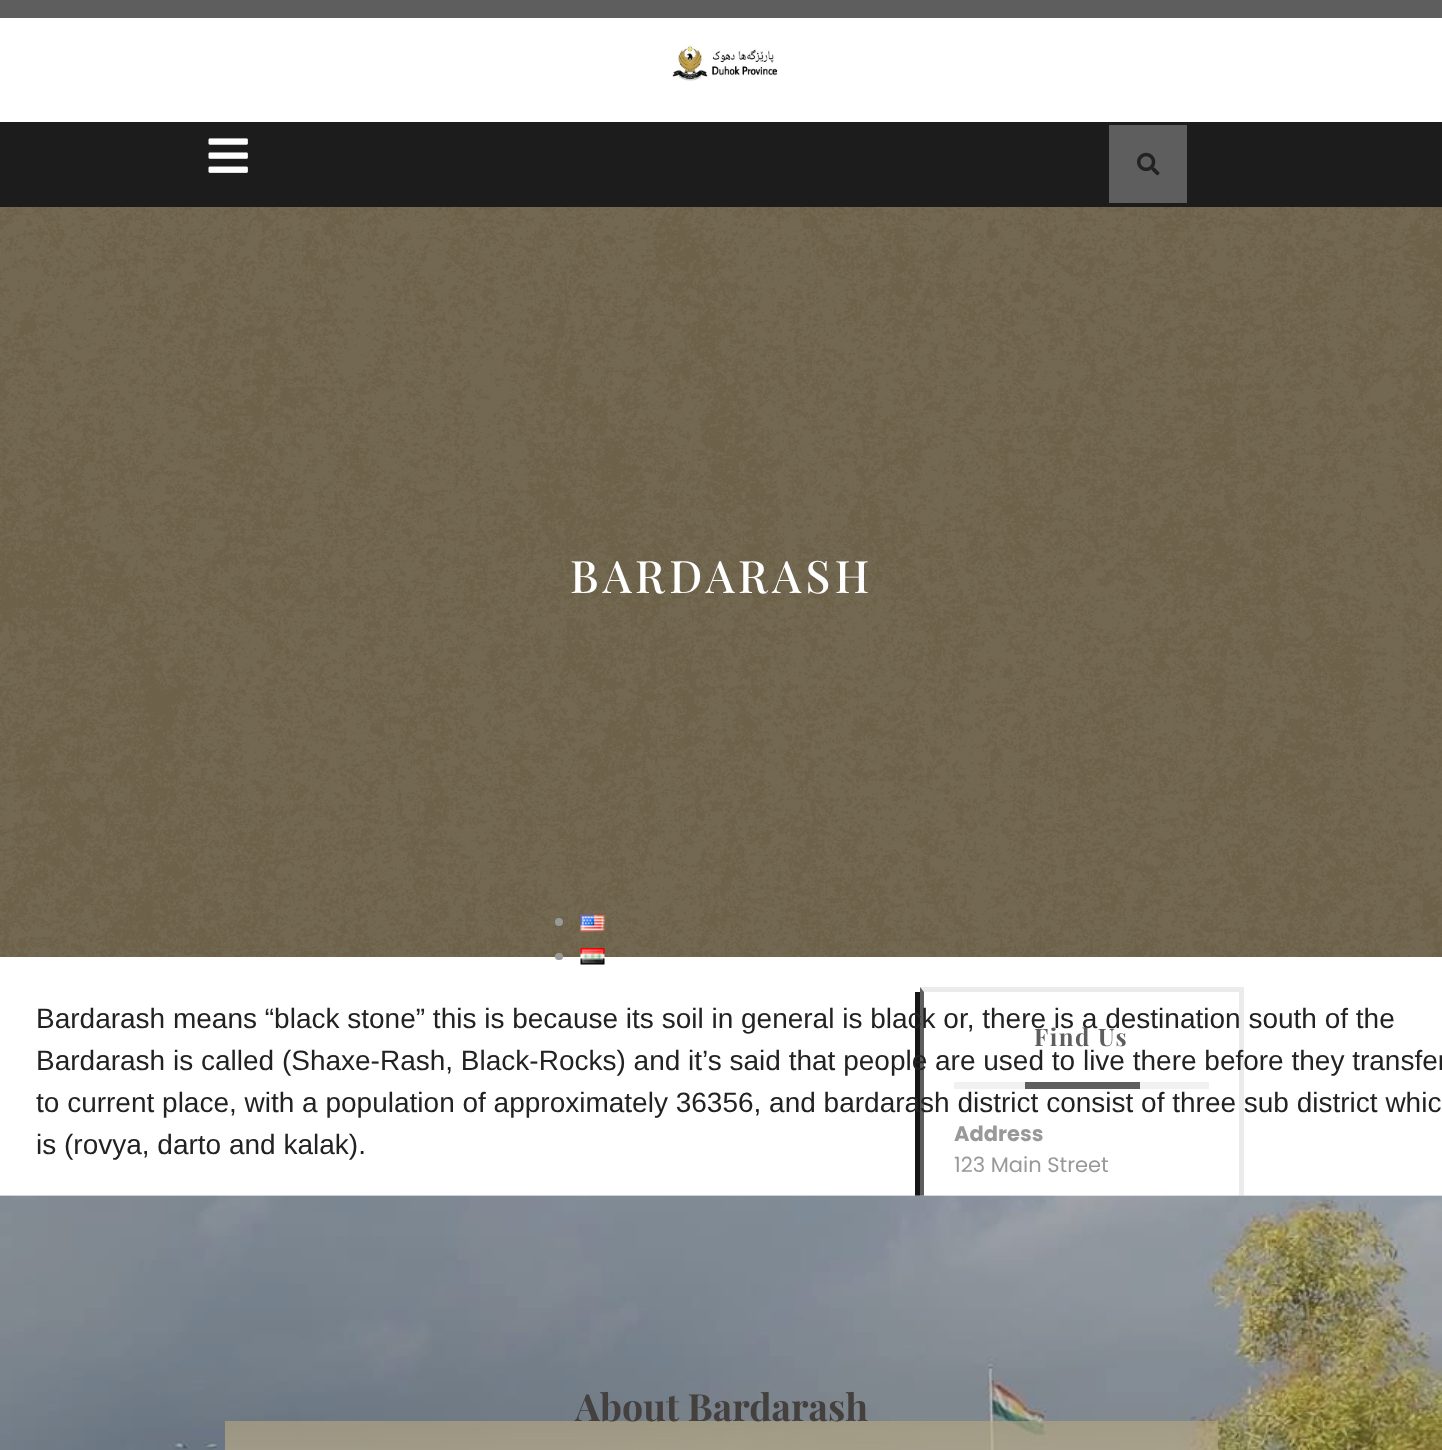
<svg xmlns="http://www.w3.org/2000/svg" width="1442" height="1450" viewBox="0 0 1442 1450">
  <style>
    .t1 { font: 500 44.75px Playfair Display; letter-spacing: 4.5px; fill: #fff; }
    .t2 { font: 28px Liberation Sans; fill: #222; }
    .t3 { font: bold 37.5px Playfair Display; fill: #43403e; }
    .t4 { font: bold 24px Playfair Display; letter-spacing: 1.5px; fill: #5e5e5e; }
    .t5 { font: bold 21px Poppins; fill: #999; }
    .t6 { font: 21px Poppins; fill: #999; }
  </style>
  <rect width="100%" height="100%" fill="#fff"/>
  <rect x="0" y="0" width="1442" height="18" fill="#5e5e5e"/>
  <image x="672" y="44" width="106" height="37" href="images/1.png"/>
  <rect x="0" y="122" width="1442" height="85" fill="#1c1c1c"/>
  <image x="208" y="138" width="40" height="35" href="images/2.png"/>
  <rect x="1109" y="125" width="78" height="78" fill="#5e5e5e"/>
  <image x="1137" y="152" width="23" height="24" href="images/3.png"/>
  <rect x="0" y="207" width="1442" height="750" fill="#000"/>
  <image x="0" y="207" width="1442" height="750" href="images/4.png"/>
  <text x="570" y="593" class="t1">BARDARASH</text>
  <circle cx="559" cy="922" r="4" fill="#999"/>
  <image x="580" y="915" width="25" height="17" href="images/5.png"/>
  <rect x="555" y="953" width="8" height="7" rx="3.5" fill="#999"/>
  <image x="580" y="948" width="25" height="17" href="images/6.png"/>
  <path d="M915 992V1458H1239V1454H920V992Z" fill="#151515"/>
  <path d="M920 987H1244L1239 992H924Z" fill="#ebebeb"/>
  <path d="M1244 987V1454L1239 1449V992Z" fill="#ebebeb"/>
  <path d="M920 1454V987L924 992V1449Z" fill="#5e5e5e"/>
  <text x="36" y="1028" class="t2">Bardarash means “black stone” this is because its soil in general is black or, there is a destination south of the</text>
  <text x="36" y="1070" class="t2">Bardarash is called (Shaxe-Rash, Black-Rocks) and it’s said that people are used to live there before they transfer</text>
  <text x="36" y="1112" class="t2">to current place, with a population of approximately 36356, and bardarash district consist of three sub district whic</text>
  <text x="36" y="1154" class="t2">is (rovya, darto and kalak).</text>
  <image x="0" y="1195" width="1442" height="255" href="images/7.png"/>
  <text x="575" y="1421" class="t3">About Bardarash</text>
  <rect x="954" y="1082" width="255" height="7" fill="#f1f1f1"/>
  <text x="1034" y="1046" class="t4">Find Us</text>
  <rect x="1025" y="1082" width="115" height="7" fill="#5e5e5e"/>
  <text x="954" y="1141" class="t5">Address</text>
  <text x="954" y="1172" class="t6">123 Main Street</text>
</svg>
